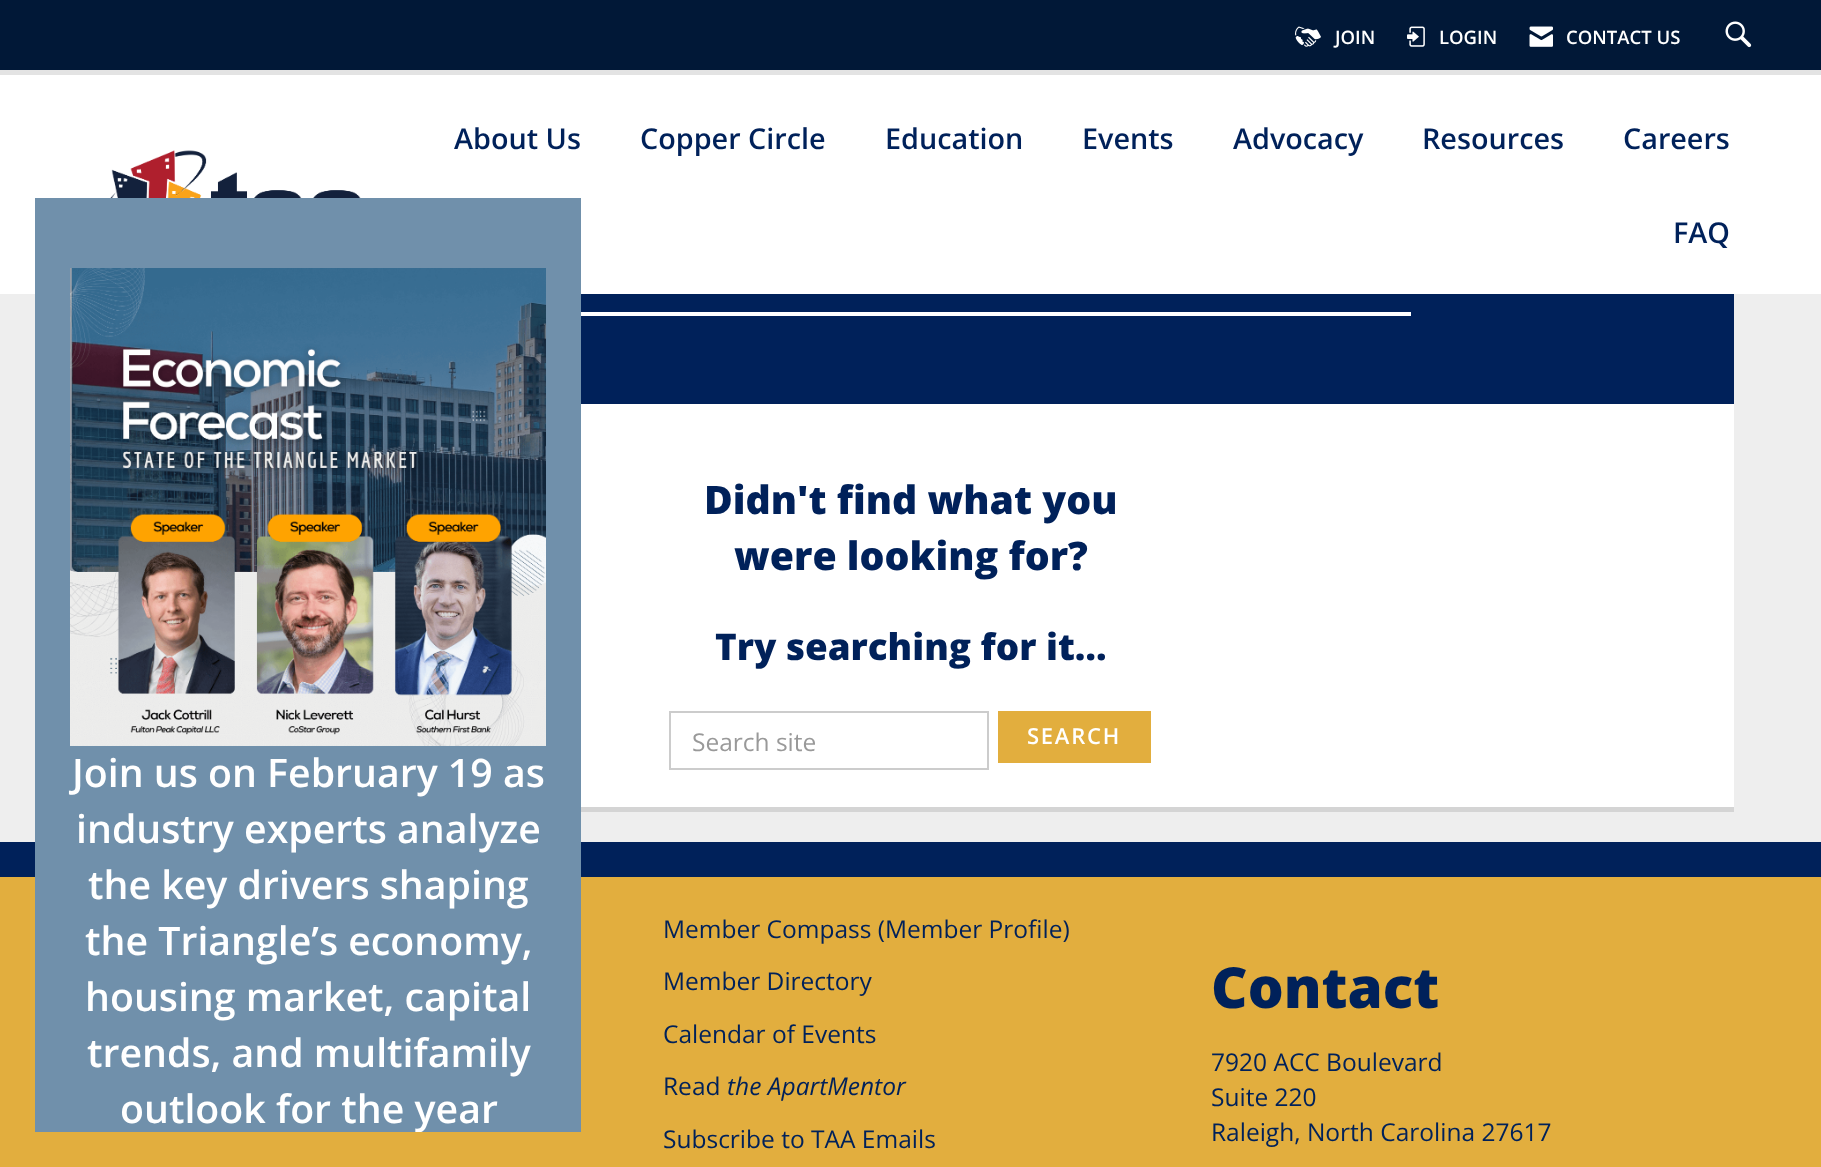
<svg xmlns="http://www.w3.org/2000/svg" width="1821" height="1167" viewBox="0 0 1821 1167">
  <style>
    .t1 { font: 600 18.5px Open Sans; fill: #fff; }
    .t2 { font: 600 28.75px Open Sans; fill: #00215a; }
    .t3 { font: 800 39.25px Open Sans; fill: #00215a; }
    .t4 { font: 800 36.75px Open Sans; fill: #00215a; }
    .t5 { font: 24.5px Open Sans; fill: #999; }
    .t6 { font: 600 22px Open Sans; letter-spacing: 1.75px; fill: #fff; }
    .t7 { font: 600 39.25px Open Sans; fill: #fff; }
    .t8 { font: 24.5px Open Sans; fill: #00215a; }
    .t9 { font: italic 24.5px Open Sans; fill: #00215a; }
    .t10 { font: 800 56.5px Open Sans; fill: #00215a; }
  </style>
  <defs>
    <clipPath id="clip1"><rect x="35" y="198" width="546" height="934"/></clipPath>
  </defs>
  <rect width="100%" height="100%" fill="#eee"/>
  <rect x="0" y="75" width="1821" height="219" fill="#fff"/>
  <path d="M0 70V75H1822V5V70Z" fill="#e3e3e3"/>
  <rect x="0" y="0" width="1821" height="70" fill="#011837"/>
  <image x="1295" y="26" width="26" height="21" href="images/1.png"/>
  <text x="1335" y="44" class="t1">JOIN</text>
  <image x="1407" y="26" width="18" height="21" href="images/2.png"/>
  <text x="1439" y="44" class="t1">LOGIN</text>
  <image x="1529" y="26" width="24" height="21" href="images/3.png"/>
  <text x="1566" y="44" class="t1">CONTACT US</text>
  <image x="1725" y="21" width="27" height="27" href="images/4.png"/>
  <image x="81" y="150" width="300" height="48" href="images/5.png"/>
  <text x="454" y="149" class="t2">About Us</text>
  <text x="640" y="149" class="t2">Copper Circle</text>
  <text x="885" y="149" class="t2">Education</text>
  <text x="1082" y="149" class="t2">Events</text>
  <text x="1233" y="149" class="t2">Advocacy</text>
  <text x="1422" y="149" class="t2">Resources</text>
  <text x="1623" y="149" class="t2">Careers</text>
  <text x="1673" y="243" class="t2">FAQ</text>
  <rect x="581" y="294" width="1153" height="110" fill="#00215a"/>
  <rect x="581" y="312" width="830" height="4" fill="#fff"/>
  <path d="M89 410V812H1734V807H89Z" fill="#d4d4d4"/>
  <rect x="581" y="404" width="1153" height="403" fill="#fff"/>
  <text x="704" y="514" class="t3">Didn't find what you</text>
  <text x="734" y="570" class="t3">were looking for?</text>
  <text x="715" y="660" class="t4">Try searching for it…</text>
  <rect x="670" y="712" width="318" height="57" fill="none" stroke="#ccc" stroke-width="2"/>
  <text x="692" y="751" class="t5">Search site</text>
  <rect x="998" y="711" width="153" height="52" fill="#e2ae3e"/>
  <text x="1027" y="744" class="t6">SEARCH</text>
  <rect x="0" y="842" width="1821" height="35" fill="#00215a"/>
  <rect x="0" y="877" width="1821" height="290" fill="#e2ae3e"/>
  <rect x="35" y="198" width="546" height="934" fill="#7090ab"/>
  <image x="70" y="268" width="476" height="478" href="images/6.png"/>
  <text x="72" y="787" class="t7">Join us on February 19 as</text>
  <text x="76" y="843" class="t7">industry experts analyze</text>
  <text x="88" y="899" class="t7">the key drivers shaping</text>
  <text x="85" y="955" class="t7">the Triangle’s economy,</text>
  <text x="85" y="1011" class="t7">housing market, capital</text>
  <text x="87" y="1067" class="t7">trends, and multifamily</text>
  <g clip-path="url(#clip1)">
    <text x="120" y="1123" class="t7">outlook for the year</text>
  </g>
  <text x="663" y="938" class="t8">Member Compass (Member Profile)</text>
  <text x="663" y="990" class="t8">Member Directory</text>
  <text x="663" y="1043" class="t8">Calendar of Events</text>
  <text x="663" y="1095" class="t8">Read</text>
  <text x="727" y="1095" class="t9">the ApartMentor</text>
  <text x="663" y="1148" class="t8">Subscribe to TAA Emails</text>
  <text x="1211" y="1008" class="t10">Contact</text>
  <text x="1211" y="1071" class="t8">7920 ACC Boulevard</text>
  <text x="1211" y="1106" class="t8">Suite 220</text>
  <text x="1211" y="1141" class="t8">Raleigh, North Carolina 27617</text>
</svg>
